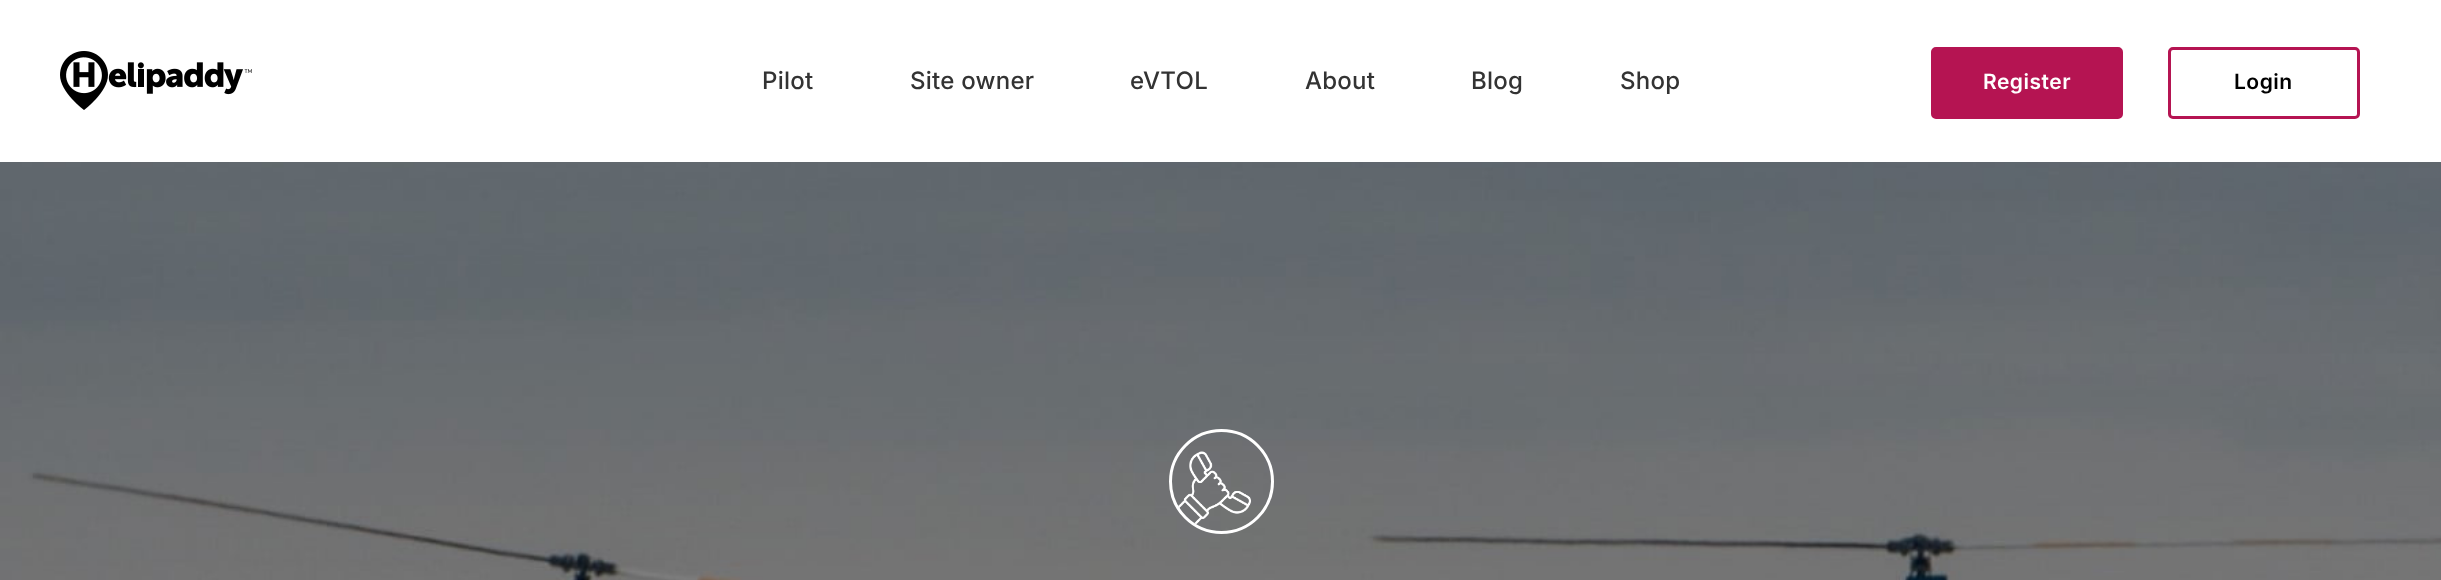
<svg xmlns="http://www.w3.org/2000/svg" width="2441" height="580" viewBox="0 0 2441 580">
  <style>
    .t1 { font: 500 24px Inter; letter-spacing: 0.25px; fill: #333; }
    .t2 { font: 600 21px Inter; letter-spacing: 0.5px; fill: #fff; }
    .t3 { font: 600 21px Inter; letter-spacing: 0.5px; fill: #000; }
  </style>
  <rect width="100%" height="100%" fill="#fff"/>
  <image x="60" y="51" width="192" height="59" href="images/1.png"/>
  <text x="762" y="89" class="t1">Pilot</text>
  <text x="910" y="89" class="t1">Site owner</text>
  <text x="1130" y="89" class="t1">eVTOL</text>
  <text x="1305" y="89" class="t1">About</text>
  <text x="1471" y="89" class="t1">Blog</text>
  <text x="1620" y="89" class="t1">Shop</text>
  <rect x="1932.5" y="48.5" width="189" height="69" rx="3.5" fill="#b51452" stroke="#b51452" stroke-width="3"/>
  <text x="1983" y="89" class="t2">Register</text>
  <rect x="2169.5" y="48.5" width="189" height="69" rx="3.5" fill="none" stroke="#b51452" stroke-width="3"/>
  <text x="2234" y="89" class="t3">Login</text>
  <image x="0" y="162" width="2441" height="418" href="images/2.png"/>
  <circle cx="1221.5" cy="481.5" r="51" fill="none" stroke="#fff" stroke-width="3"/>
  <image x="1178" y="451" width="73" height="73" href="images/3.png"/>
</svg>
